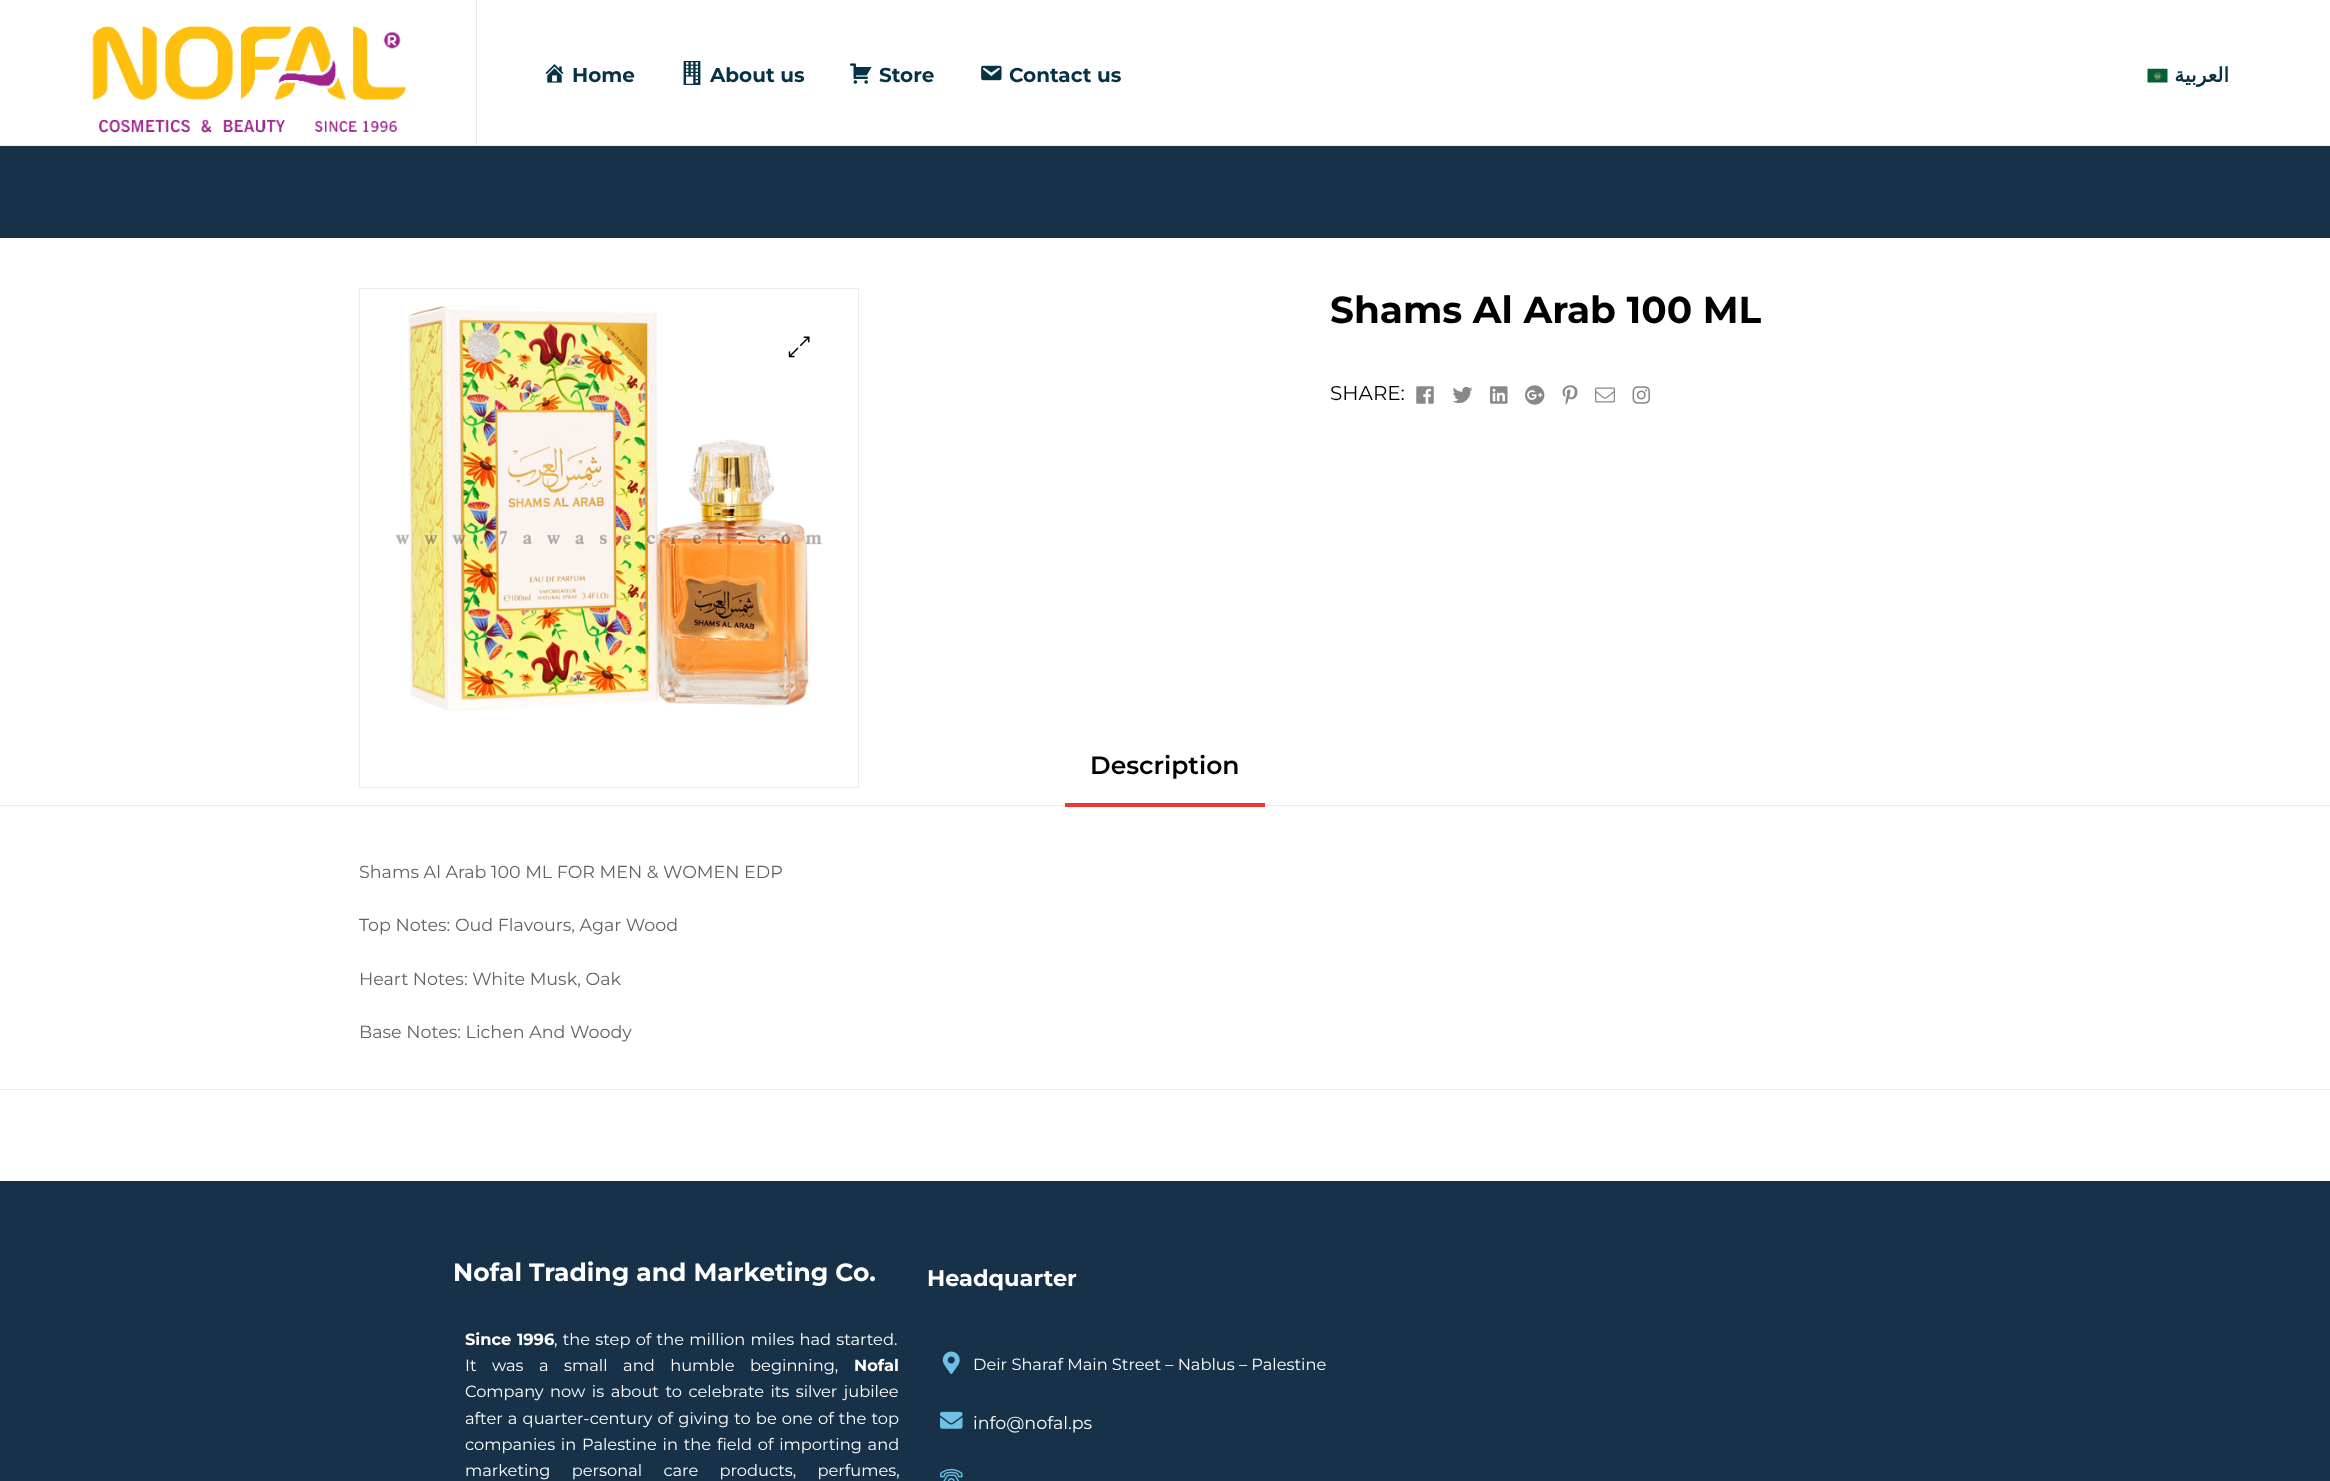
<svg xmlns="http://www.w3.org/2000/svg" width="2330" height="1481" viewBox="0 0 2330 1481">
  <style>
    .t1 { font: bold 20px Montserrat; fill: #053247; }
    .t2 { font: bold 20px DejaVu Sans; direction: rtl; fill: #053247; }
    .t3 { font: bold 37.5px Montserrat; fill: #000; }
    .t4 { font: 20px Montserrat; fill: #000; }
    .t5 { font: 600 25px Montserrat; fill: #000; }
    .t6 { font: 17.5px Montserrat; fill: #626262; }
    .t7 { font: bold 25px Montserrat; fill: #fff; }
    .t8 { font: bold 16.25px Montserrat; fill: #fff; }
    .t9 { font: 16.25px Montserrat; fill: #fff; }
    .t10 { font: bold 22.5px Montserrat; fill: #fff; }
    .t11 { font: 17.5px Montserrat; fill: #fff; }
  </style>
  <rect width="100%" height="100%" fill="#fff"/>
  <rect x="0" y="145" width="2330" height="1" fill="#ebebeb"/>
  <rect x="476" y="0" width="1" height="145" fill="#ebebeb"/>
  <image x="92" y="26" width="315" height="107" href="images/1.png"/>
  <image x="545" y="64" width="19" height="19" href="images/2.png"/>
  <text x="572" y="82" class="t1">Home</text>
  <image x="683" y="61" width="18" height="24" href="images/3.png"/>
  <text x="710" y="82" class="t1">About us</text>
  <image x="850" y="63" width="22" height="21" href="images/4.png"/>
  <text x="879" y="82" class="t1">Store</text>
  <image x="981" y="65" width="21" height="16" href="images/5.png"/>
  <text x="1009" y="82" class="t1">Contact us</text>
  <image x="2147" y="68" width="21" height="15" href="images/6.png"/>
  <text x="2229" y="82" class="t2">العربية</text>
  <rect x="0" y="146" width="2330" height="92" fill="#173148"/>
  <rect x="359.5" y="288.5" width="499" height="499" fill="none" stroke="#ebebeb"/>
  <image x="395" y="305" width="427" height="406" href="images/7.png"/>
  <image x="788" y="336" width="22" height="22" href="images/8.png"/>
  <text x="1330" y="323" class="t3">Shams Al Arab 100 ML</text>
  <text x="1330" y="400" class="t4">SHARE:</text>
  <image x="1416" y="386" width="18" height="18" href="images/9.png"/>
  <image x="1452" y="386" width="21" height="18" href="images/10.png"/>
  <image x="1490" y="386" width="18" height="18" href="images/11.png"/>
  <image x="1525" y="385" width="20" height="20" href="images/12.png"/>
  <image x="1562" y="385" width="16" height="20" href="images/13.png"/>
  <image x="1595" y="387" width="20" height="16" href="images/14.png"/>
  <image x="1632" y="386" width="18" height="18" href="images/15.png"/>
  <text x="1090" y="774" class="t5">Description</text>
  <rect x="0" y="805" width="2330" height="1" fill="#ebebeb"/>
  <rect x="1065" y="803" width="200" height="4" fill="#ef3636"/>
  <text x="359" y="878" class="t6">Shams Al Arab 100 ML FOR MEN &amp; WOMEN EDP</text>
  <text x="359" y="931" class="t6">Top Notes: Oud Flavours, Agar Wood</text>
  <text x="359" y="985" class="t6">Heart Notes: White Musk, Oak</text>
  <text x="359" y="1038" class="t6">Base Notes: Lichen And Woody</text>
  <rect x="0" y="1089" width="2330" height="1" fill="#ebebeb"/>
  <rect x="0" y="1181" width="2330" height="300" fill="#173148"/>
  <text x="453" y="1281" class="t7">Nofal Trading and Marketing Co.</text>
  <text x="465" y="1345" word-spacing="1" class="t8">Since 1996</text>
  <text x="554" y="1345" word-spacing="1" class="t9">, the step of the million miles had started.</text>
  <text x="465" y="1371" word-spacing="11.25" class="t9">It was a small and humble beginning,</text>
  <text x="854" y="1371" class="t8">Nofal</text>
  <text x="465" y="1397" word-spacing="2.25" class="t9">Company now is about to celebrate its silver jubilee</text>
  <text x="465" y="1424" word-spacing="0.9" class="t9">after a quarter-century of giving to be one of the top</text>
  <text x="465" y="1450" word-spacing="1.5" class="t9">companies in Palestine in the field of importing and</text>
  <text x="465" y="1476" word-spacing="17" class="t9">marketing personal care products, perfumes,</text>
  <text x="927" y="1286" class="t10">Headquarter</text>
  <image x="942" y="1351" width="18" height="23" href="images/16.png"/>
  <text x="973" y="1370" class="t9">Deir Sharaf Main Street – Nablus – Palestine</text>
  <image x="940" y="1411" width="23" height="18" href="images/17.png"/>
  <text x="973" y="1429" class="t11">info@nofal.ps</text>
  <image x="940" y="1468" width="23" height="13" href="images/18.png"/>
</svg>
